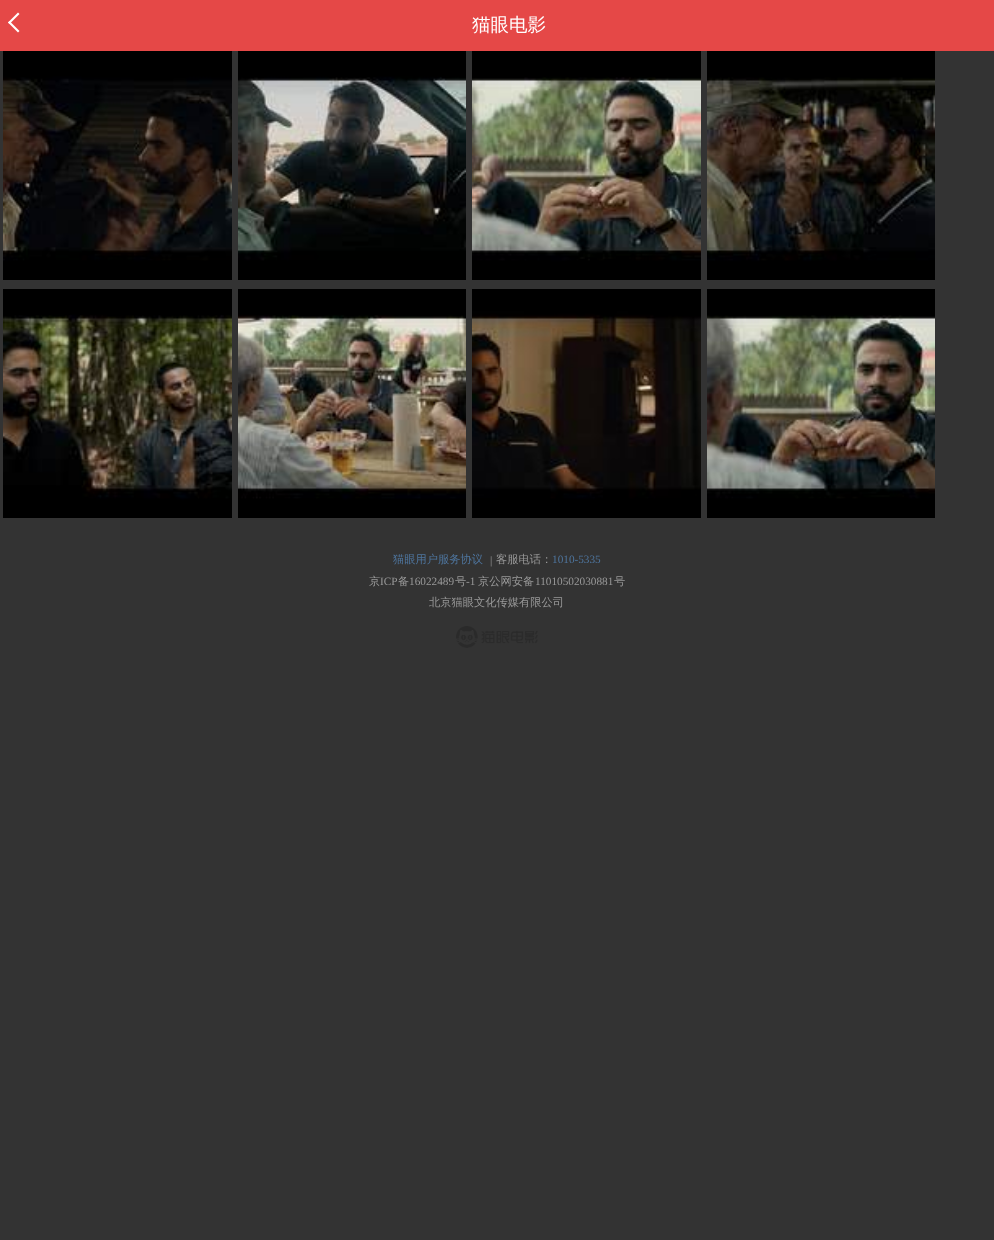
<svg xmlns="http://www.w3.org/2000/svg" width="994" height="1240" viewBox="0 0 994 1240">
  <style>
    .t1 { font: 500 18.5px WenQuanYi Zen Hei; fill: #fff; }
    .t2 { font: 500 11.25px WenQuanYi Zen Hei; fill: #4e759e; }
    .t3 { font: 11.25px Liberation Serif; fill: #999; }
    .t4 { font: 500 11.25px WenQuanYi Zen Hei; fill: #999; }
    .t5 { font: 11.25px Liberation Serif; fill: #4e759e; }
  </style>
  <rect width="100%" height="100%" fill="#333"/>
  <rect x="0" y="0" width="994" height="51" fill="#e54847"/>
  <path d="M9.5 21L19.5 31L18 32.5L8 22.5Z" fill="#fff"/>
  <path d="M18 12.5L19.5 14L9.5 24L8 22.5Z" fill="#fff"/>
  <text x="472" y="31" class="t1">猫眼电影</text>
  <image x="3" y="51" width="229" height="229" href="images/1.png"/>
  <image x="238" y="51" width="228" height="229" href="images/2.png"/>
  <image x="472" y="51" width="229" height="229" href="images/3.png"/>
  <image x="707" y="51" width="228" height="229" href="images/4.png"/>
  <image x="3" y="289" width="229" height="229" href="images/5.png"/>
  <image x="238" y="289" width="228" height="229" href="images/6.png"/>
  <image x="472" y="289" width="229" height="229" href="images/7.png"/>
  <image x="707" y="289" width="228" height="229" href="images/8.png"/>
  <text x="393" y="563" class="t2">猫眼用户服务协议</text>
  <text x="490" y="564" class="t3">|</text>
  <text x="496" y="563" class="t4">客服电话：</text>
  <text x="552" y="563" class="t5">1010-5335</text>
  <text x="369" y="585" class="t4">京</text>
  <text x="380" y="585" class="t3">ICP</text>
  <text x="398" y="585" class="t4">备</text>
  <text x="409" y="585" class="t3">16022489</text>
  <text x="455" y="585" class="t4">号</text>
  <text x="466" y="585" class="t3">-1</text>
  <text x="478" y="585" class="t4">京公网安备</text>
  <text x="535" y="585" class="t3">11010502030881</text>
  <text x="614" y="585" class="t4">号</text>
  <text x="429" y="606" class="t4">北京猫眼文化传媒有限公司</text>
  <image x="456" y="626" width="82" height="22" href="images/9.png"/>
</svg>
